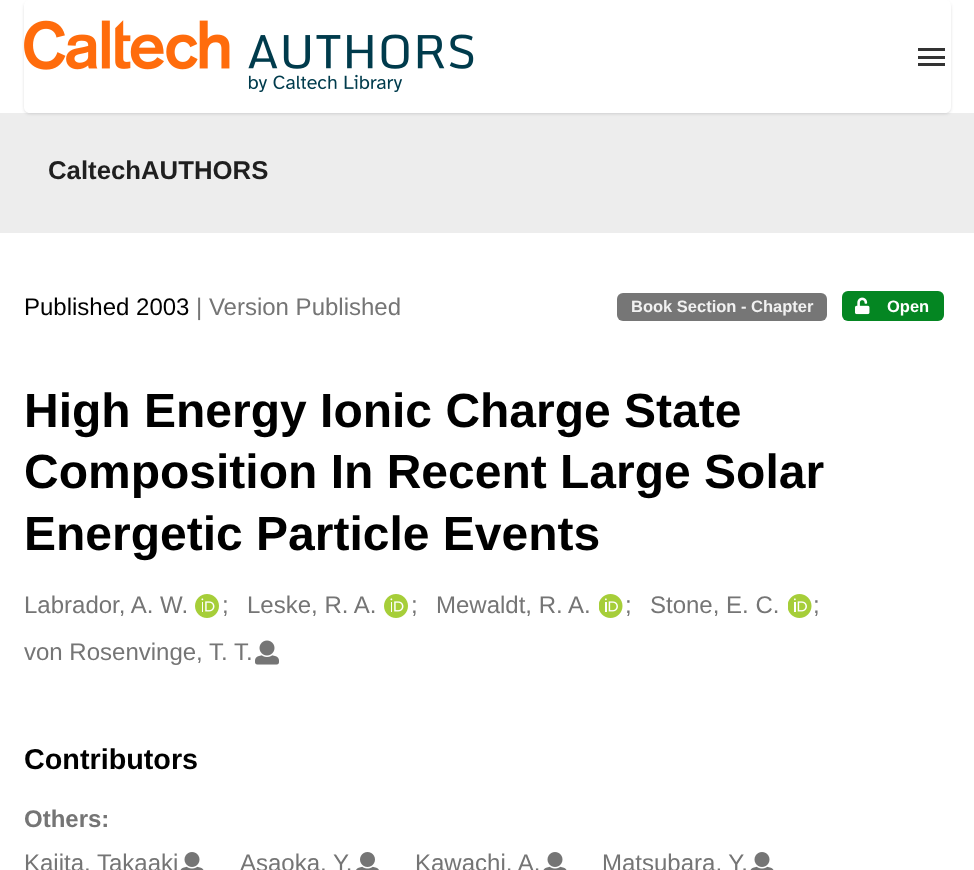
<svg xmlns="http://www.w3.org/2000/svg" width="974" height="870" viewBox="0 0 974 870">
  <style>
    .t1 { font: bold 25.75px Liberation Sans; fill: #1f1f1f; }
    .t2 { font: 24px Liberation Sans; fill: #000; }
    .t3 { font: 24px Liberation Sans; fill: #757575; }
    .t4 { font: bold 16.5px Liberation Sans; fill: #f1f1f1; }
    .t5 { font: bold 16.5px Liberation Sans; fill: #fff; }
    .t6 { font: bold 48px Liberation Sans; fill: #000; }
    .t7 { font: bold 28.75px Liberation Sans; fill: #000; }
    .t8 { font: bold 24px Liberation Sans; fill: #757575; }
  </style>
  <defs>
    <clipPath id="clip1"><path d="M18 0H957V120H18ZM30 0H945C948.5 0 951 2.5 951 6V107C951 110.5 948.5 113 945 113H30C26.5 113 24 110.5 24 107V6C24 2.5 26.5 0 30 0Z" clip-rule="evenodd"/></clipPath>
  </defs>
  <rect width="100%" height="100%" fill="#fff"/>
  <rect x="0" y="113" width="974" height="120" fill="#ededed"/>
  <g clip-path="url(#clip1)">
    <rect x="24" y="2" width="927" height="112" rx="6" fill="#22242626" filter="blur(1.5px)"/>
  </g>
  <image x="24" y="20" width="450" height="72" href="images/1.png"/>
  <rect x="918" y="56" width="27" height="3" fill="#333"/>
  <rect x="918" y="48" width="27" height="3" fill="#333"/>
  <rect x="918" y="63" width="27" height="3" fill="#333"/>
  <text x="48" y="179" class="t1">CaltechAUTHORS</text>
  <text x="24" y="315" class="t2">Published 2003</text>
  <text x="196" y="315" class="t3">| Version Published</text>
  <rect x="617" y="293" width="210" height="28" rx="6" fill="#767676"/>
  <text x="631" y="312" class="t4">Book Section - Chapter</text>
  <rect x="842" y="291" width="102" height="30" rx="6" fill="#048622"/>
  <image x="855" y="297" width="15" height="18" href="images/2.png"/>
  <text x="887" y="312" class="t5">Open</text>
  <text x="24" y="427" class="t6">High Energy Ionic Charge State</text>
  <text x="24" y="488" class="t6">Composition In Recent Large Solar</text>
  <text x="24" y="550" class="t6">Energetic Particle Events</text>
  <text x="24" y="613" class="t3">Labrador, A. W.</text>
  <image x="195" y="594" width="24" height="24" href="images/3.png"/>
  <text x="222" y="613" class="t3">;</text>
  <text x="247" y="613" class="t3">Leske, R. A.</text>
  <image x="384" y="594" width="24" height="24" href="images/3.png"/>
  <text x="411" y="613" class="t3">;</text>
  <text x="436" y="613" class="t3">Mewaldt, R. A.</text>
  <image x="599" y="594" width="24" height="24" href="images/4.png"/>
  <text x="625" y="613" class="t3">;</text>
  <text x="650" y="613" class="t3">Stone, E. C.</text>
  <image x="788" y="594" width="24" height="24" href="images/4.png"/>
  <text x="813" y="613" class="t3">;</text>
  <text x="24" y="660" class="t3">von Rosenvinge, T. T.</text>
  <image x="255" y="640" width="24" height="25" href="images/5.png"/>
  <text x="24" y="769" class="t7">Contributors</text>
  <text x="24" y="827" class="t8">Others:</text>
  <text x="24" y="871" class="t3">Kajita, Takaaki</text>
  <image x="180" y="852" width="24" height="18" href="images/6.png"/>
  <text x="240" y="871" class="t3">Asaoka, Y.</text>
  <image x="356" y="852" width="23" height="18" href="images/7.png"/>
  <text x="415" y="871" class="t3">Kawachi, A.</text>
  <image x="543" y="852" width="24" height="18" href="images/6.png"/>
  <text x="602" y="871" class="t3">Matsubara, Y.</text>
  <image x="750" y="852" width="24" height="18" href="images/6.png"/>
</svg>
